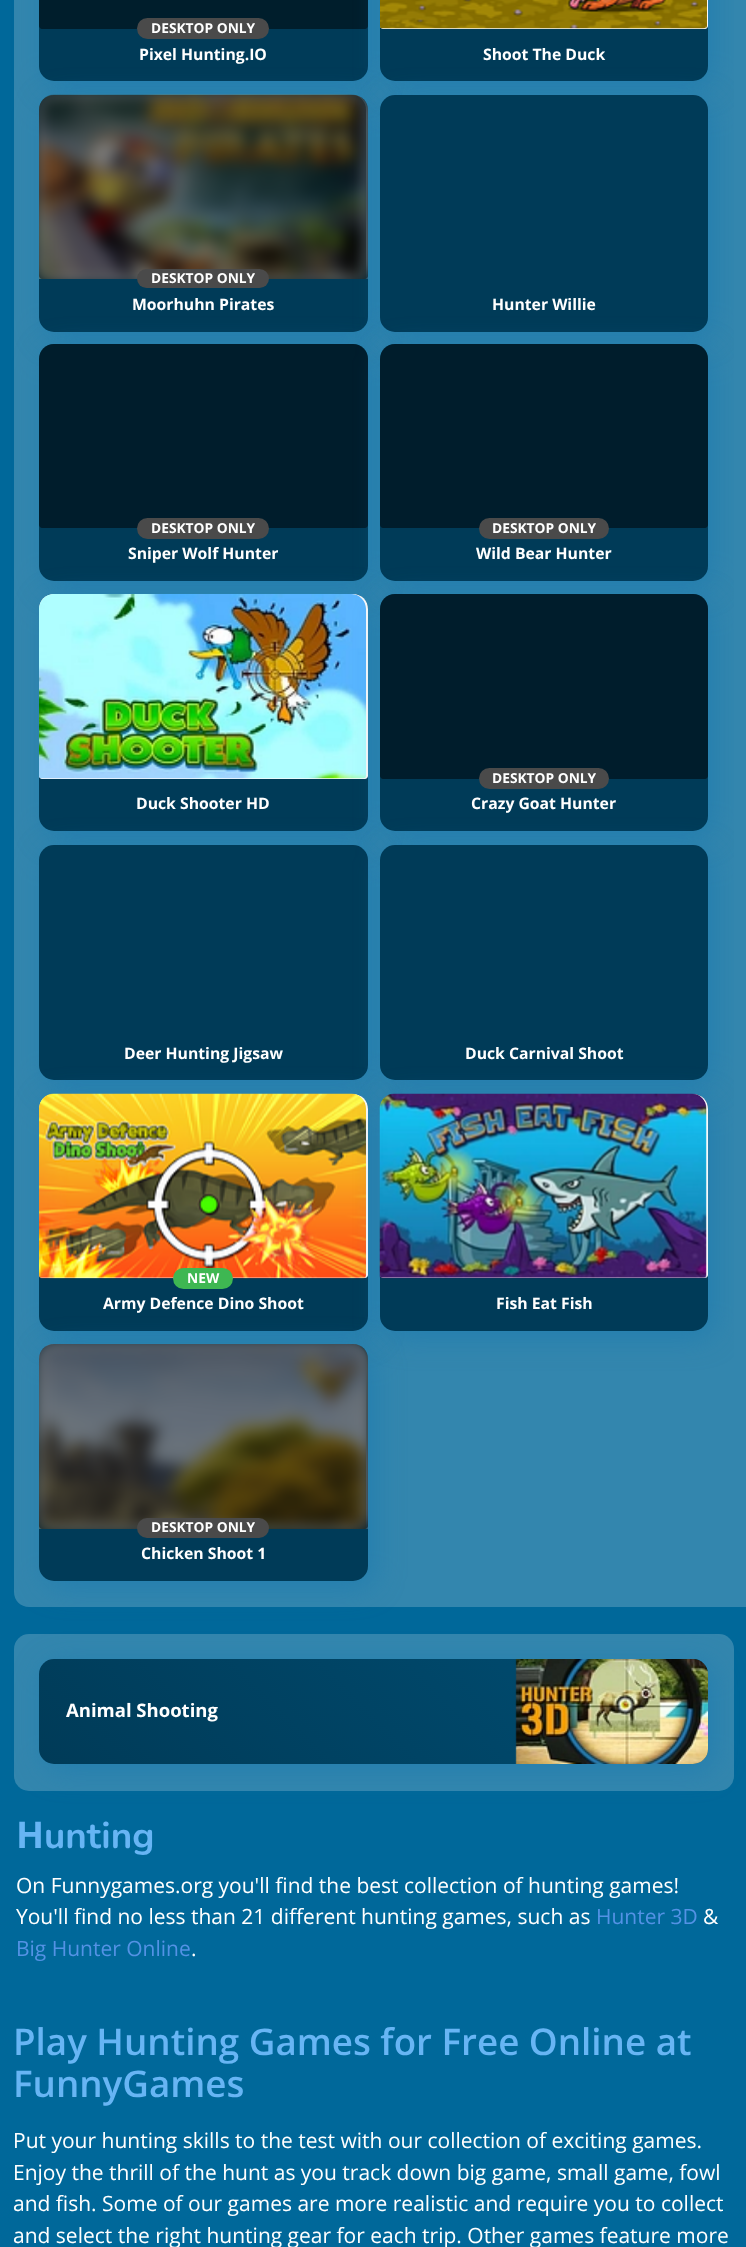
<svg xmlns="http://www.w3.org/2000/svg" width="746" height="2247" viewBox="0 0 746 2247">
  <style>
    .t1 { font: bold 13.75px Open Sans; fill: #fff; }
    .t2 { font: bold 15.75px Open Sans; fill: #fff; }
    .t3 { font: bold 18.5px Open Sans; fill: #fff; }
    .t4 { font: bold 36.75px Noto Sans; fill: #67b5f4; }
    .t5 { font: bold 36.75px Nunito; fill: #67b5f4; }
    .t6 { font: 21px Open Sans; fill: #fff; }
    .t7 { font: 21px Open Sans; fill: #5392e5; }
    .t8 { font: 600 36.75px Open Sans; fill: #67b5f4; }
  </style>
  <defs>
    <clipPath id="clip1"><rect x="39" y="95" width="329" height="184"/></clipPath>
    <clipPath id="clip2"><rect x="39" y="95" width="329" height="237" rx="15"/></clipPath>
    <clipPath id="clip3"><rect x="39" y="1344" width="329" height="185"/></clipPath>
    <clipPath id="clip4"><rect x="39" y="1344" width="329" height="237" rx="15"/></clipPath>
    <linearGradient id="g1" gradientUnits="userSpaceOnUse" x1="180" y1="1905" x2="567" y2="1518"><stop offset="0" stop-color="#003b58"/><stop offset="1" stop-color="#004d72"/></linearGradient>
  </defs>
  <rect width="100%" height="100%" fill="#00689a"/>
  <path d="M29-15H734V1607H29C20.5 1607 14 1600.5 14 1592V0C14-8.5 20.5-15 29-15Z" fill="#3386ae"/>
  <rect x="45" y="-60" width="329" height="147" rx="15" fill="#1276af80" filter="blur(15px)"/>
  <rect x="39" y="-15" width="329" height="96" rx="15" fill="#003b58"/>
  <path d="M54-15H353C361.5-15 368-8.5 368 0V26C368 27.5 366.5 29 365 29H42C40.5 29 39 27.5 39 26V0C39-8.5 45.5-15 54-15Z" fill="#001e2c"/>
  <rect x="137" y="18" width="132" height="21" rx="10.5" fill="#4a4a4a"/>
  <text x="151" y="33" class="t1">DESKTOP ONLY</text>
  <text x="139" y="60" class="t2">Pixel Hunting.IO</text>
  <rect x="386" y="-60" width="328" height="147" rx="15" fill="#1276af80" filter="blur(15px)"/>
  <rect x="380" y="-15" width="328" height="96" rx="15" fill="#003b58"/>
  <path d="M395-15H693C701.5-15 708-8.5 708 0V26C708 27.5 706.5 29 705 29H383C381.5 29 380 27.5 380 26V0C380-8.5 386.5-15 395-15Z" fill="#fafafa"/>
  <image x="380" y="0" width="327" height="29" href="images/1.png"/>
  <text x="483" y="60" class="t2">Shoot The Duck</text>
  <rect x="45" y="101" width="329" height="237" rx="15" fill="#1276af80" filter="blur(15px)"/>
  <rect x="39" y="95" width="329" height="237" rx="15" fill="#003b58"/>
  <g clip-path="url(#clip1)">
    <g clip-path="url(#clip2)">
      <rect x="39" y="95" width="329" height="184" rx="14" fill="#fafafa" filter="blur(7.5px)"/>
    </g>
  </g>
  <image x="39" y="94" width="327" height="185" href="images/2.png"/>
  <path d="M54 95H353C361.5 95 368 101.5 368 110V276C368 277.5 366.5 279 365 279H42C40.5 279 39 277.5 39 276V110C39 101.5 45.5 95 54 95Z" fill="#00000080"/>
  <rect x="137" y="269" width="132" height="19" rx="9.5" fill="#4a4a4a"/>
  <text x="151" y="283" class="t1">DESKTOP ONLY</text>
  <text x="132" y="310" class="t2">Moorhuhn Pirates</text>
  <rect x="386" y="101" width="328" height="237" rx="15" fill="#1276af80" filter="blur(15px)"/>
  <rect x="380" y="95" width="328" height="237" rx="15" fill="#003b58"/>
  <text x="492" y="310" class="t2">Hunter Willie</text>
  <rect x="45" y="350" width="329" height="237" rx="15" fill="#1276af80" filter="blur(15px)"/>
  <rect x="39" y="344" width="329" height="237" rx="15" fill="#003b58"/>
  <path d="M54 344H353C361.5 344 368 350.5 368 359V525C368 526.5 366.5 528 365 528H42C40.5 528 39 526.5 39 525V359C39 350.5 45.5 344 54 344Z" fill="#00000080"/>
  <rect x="137" y="518" width="132" height="21" rx="10.5" fill="#4a4a4a"/>
  <text x="151" y="533" class="t1">DESKTOP ONLY</text>
  <text x="128" y="559" class="t2">Sniper Wolf Hunter</text>
  <rect x="386" y="350" width="328" height="237" rx="15" fill="#1276af80" filter="blur(15px)"/>
  <rect x="380" y="344" width="328" height="237" rx="15" fill="#003b58"/>
  <path d="M395 344H693C701.5 344 708 350.5 708 359V525C708 526.5 706.5 528 705 528H383C381.5 528 380 526.5 380 525V359C380 350.5 386.5 344 395 344Z" fill="#00000080"/>
  <rect x="479" y="518" width="130" height="21" rx="10.5" fill="#4a4a4a"/>
  <text x="492" y="533" class="t1">DESKTOP ONLY</text>
  <text x="476" y="559" class="t2">Wild Bear Hunter</text>
  <rect x="45" y="600" width="329" height="237" rx="15" fill="#1276af80" filter="blur(15px)"/>
  <rect x="39" y="594" width="329" height="237" rx="15" fill="#003b58"/>
  <path d="M54 594H353C361.5 594 368 600.5 368 609V776C368 777.5 366.5 779 365 779H42C40.5 779 39 777.5 39 776V609C39 600.5 45.5 594 54 594Z" fill="#fafafa"/>
  <image x="39" y="594" width="327" height="185" href="images/3.png"/>
  <text x="136" y="809" class="t2">Duck Shooter HD</text>
  <rect x="386" y="600" width="328" height="237" rx="15" fill="#1276af80" filter="blur(15px)"/>
  <rect x="380" y="594" width="328" height="237" rx="15" fill="#003b58"/>
  <path d="M395 594H693C701.5 594 708 600.5 708 609V776C708 777.5 706.5 779 705 779H383C381.5 779 380 777.5 380 776V609C380 600.5 386.5 594 395 594Z" fill="#00000080"/>
  <rect x="479" y="768" width="130" height="21" rx="10.5" fill="#4a4a4a"/>
  <text x="492" y="783" class="t1">DESKTOP ONLY</text>
  <text x="471" y="809" class="t2">Crazy Goat Hunter</text>
  <rect x="45" y="851" width="329" height="235" rx="15" fill="#1276af80" filter="blur(15px)"/>
  <rect x="39" y="845" width="329" height="235" rx="15" fill="#003b58"/>
  <text x="124" y="1059" class="t2">Deer Hunting Jigsaw</text>
  <rect x="386" y="851" width="328" height="235" rx="15" fill="#1276af80" filter="blur(15px)"/>
  <rect x="380" y="845" width="328" height="235" rx="15" fill="#003b58"/>
  <text x="465" y="1059" class="t2">Duck Carnival Shoot</text>
  <rect x="45" y="1100" width="329" height="237" rx="15" fill="#1276af80" filter="blur(15px)"/>
  <rect x="39" y="1094" width="329" height="237" rx="15" fill="#003b58"/>
  <path d="M54 1094H353C361.5 1094 368 1100.5 368 1109V1275C368 1276.5 366.5 1278 365 1278H42C40.5 1278 39 1276.5 39 1275V1109C39 1100.5 45.5 1094 54 1094Z" fill="#fafafa"/>
  <image x="39" y="1093" width="327" height="186" href="images/4.png"/>
  <rect x="173" y="1268" width="60" height="21" rx="10.5" fill="#3eb752"/>
  <text x="187" y="1283" class="t1">NEW</text>
  <text x="103" y="1309" class="t2">Army Defence Dino Shoot</text>
  <rect x="386" y="1100" width="328" height="237" rx="15" fill="#1276af80" filter="blur(15px)"/>
  <rect x="380" y="1094" width="328" height="237" rx="15" fill="#003b58"/>
  <path d="M395 1094H693C701.5 1094 708 1100.5 708 1109V1275C708 1276.5 706.5 1278 705 1278H383C381.5 1278 380 1276.5 380 1275V1109C380 1100.5 386.5 1094 395 1094Z" fill="#fafafa"/>
  <image x="379" y="1093" width="328" height="186" href="images/5.png"/>
  <text x="496" y="1309" class="t2">Fish Eat Fish</text>
  <rect x="45" y="1350" width="329" height="237" rx="15" fill="#1276af80" filter="blur(15px)"/>
  <rect x="39" y="1344" width="329" height="237" rx="15" fill="#003b58"/>
  <g clip-path="url(#clip3)">
    <g clip-path="url(#clip4)">
      <rect x="39" y="1344" width="329" height="185" rx="14" fill="#fafafa" filter="blur(7.5px)"/>
    </g>
  </g>
  <image x="39" y="1344" width="327" height="185" href="images/6.png"/>
  <path d="M54 1344H353C361.5 1344 368 1350.5 368 1359V1526C368 1527.5 366.5 1529 365 1529H42C40.5 1529 39 1527.5 39 1526V1359C39 1350.5 45.5 1344 54 1344Z" fill="#00000080"/>
  <rect x="137" y="1518" width="132" height="20" rx="10" fill="#4a4a4a"/>
  <text x="151" y="1532" class="t1">DESKTOP ONLY</text>
  <text x="141" y="1559" class="t2">Chicken Shoot 1</text>
  <rect x="734" y="0" width="12" height="1607" fill="#3386ae"/>
  <rect x="14" y="1634" width="720" height="157" rx="15" fill="#3386ae"/>
  <rect x="45" y="1665" width="669" height="105" rx="15" fill="#1276af80" filter="blur(15px)"/>
  <rect x="39" y="1659" width="669" height="105" rx="15" fill="url(#g1)"/>
  <text x="66" y="1717" class="t3">Animal Shooting</text>
  <image x="515" y="1659" width="193" height="105" href="images/7.png"/>
  <text x="16" y="1848" class="t4">H</text>
  <text x="44" y="1848" class="t5">unting</text>
  <text x="16" y="1893" class="t6">On Funnygames.org you'll find the best collection of hunting games!</text>
  <text x="16" y="1924" class="t6">You'll find no less than 21 different hunting games, such as</text>
  <text x="596" y="1924" class="t7">Hunter 3D</text>
  <text x="703" y="1924" class="t6">&amp;</text>
  <text x="16" y="1956" class="t7">Big Hunter Online</text>
  <text x="191" y="1956" class="t6">.</text>
  <text x="13" y="2055" class="t8">Play Hunting Games for Free Online at</text>
  <text x="13" y="2097" class="t8">FunnyGames</text>
  <text x="13" y="2148" class="t6">Put your hunting skills to the test with our collection of exciting games.</text>
  <text x="13" y="2180" class="t6">Enjoy the thrill of the hunt as you track down big game, small game, fowl</text>
  <text x="13" y="2211" class="t6">and fish. Some of our games are more realistic and require you to collect</text>
  <text x="13" y="2243" class="t6">and select the right hunting gear for each trip. Other games feature more</text>
</svg>
